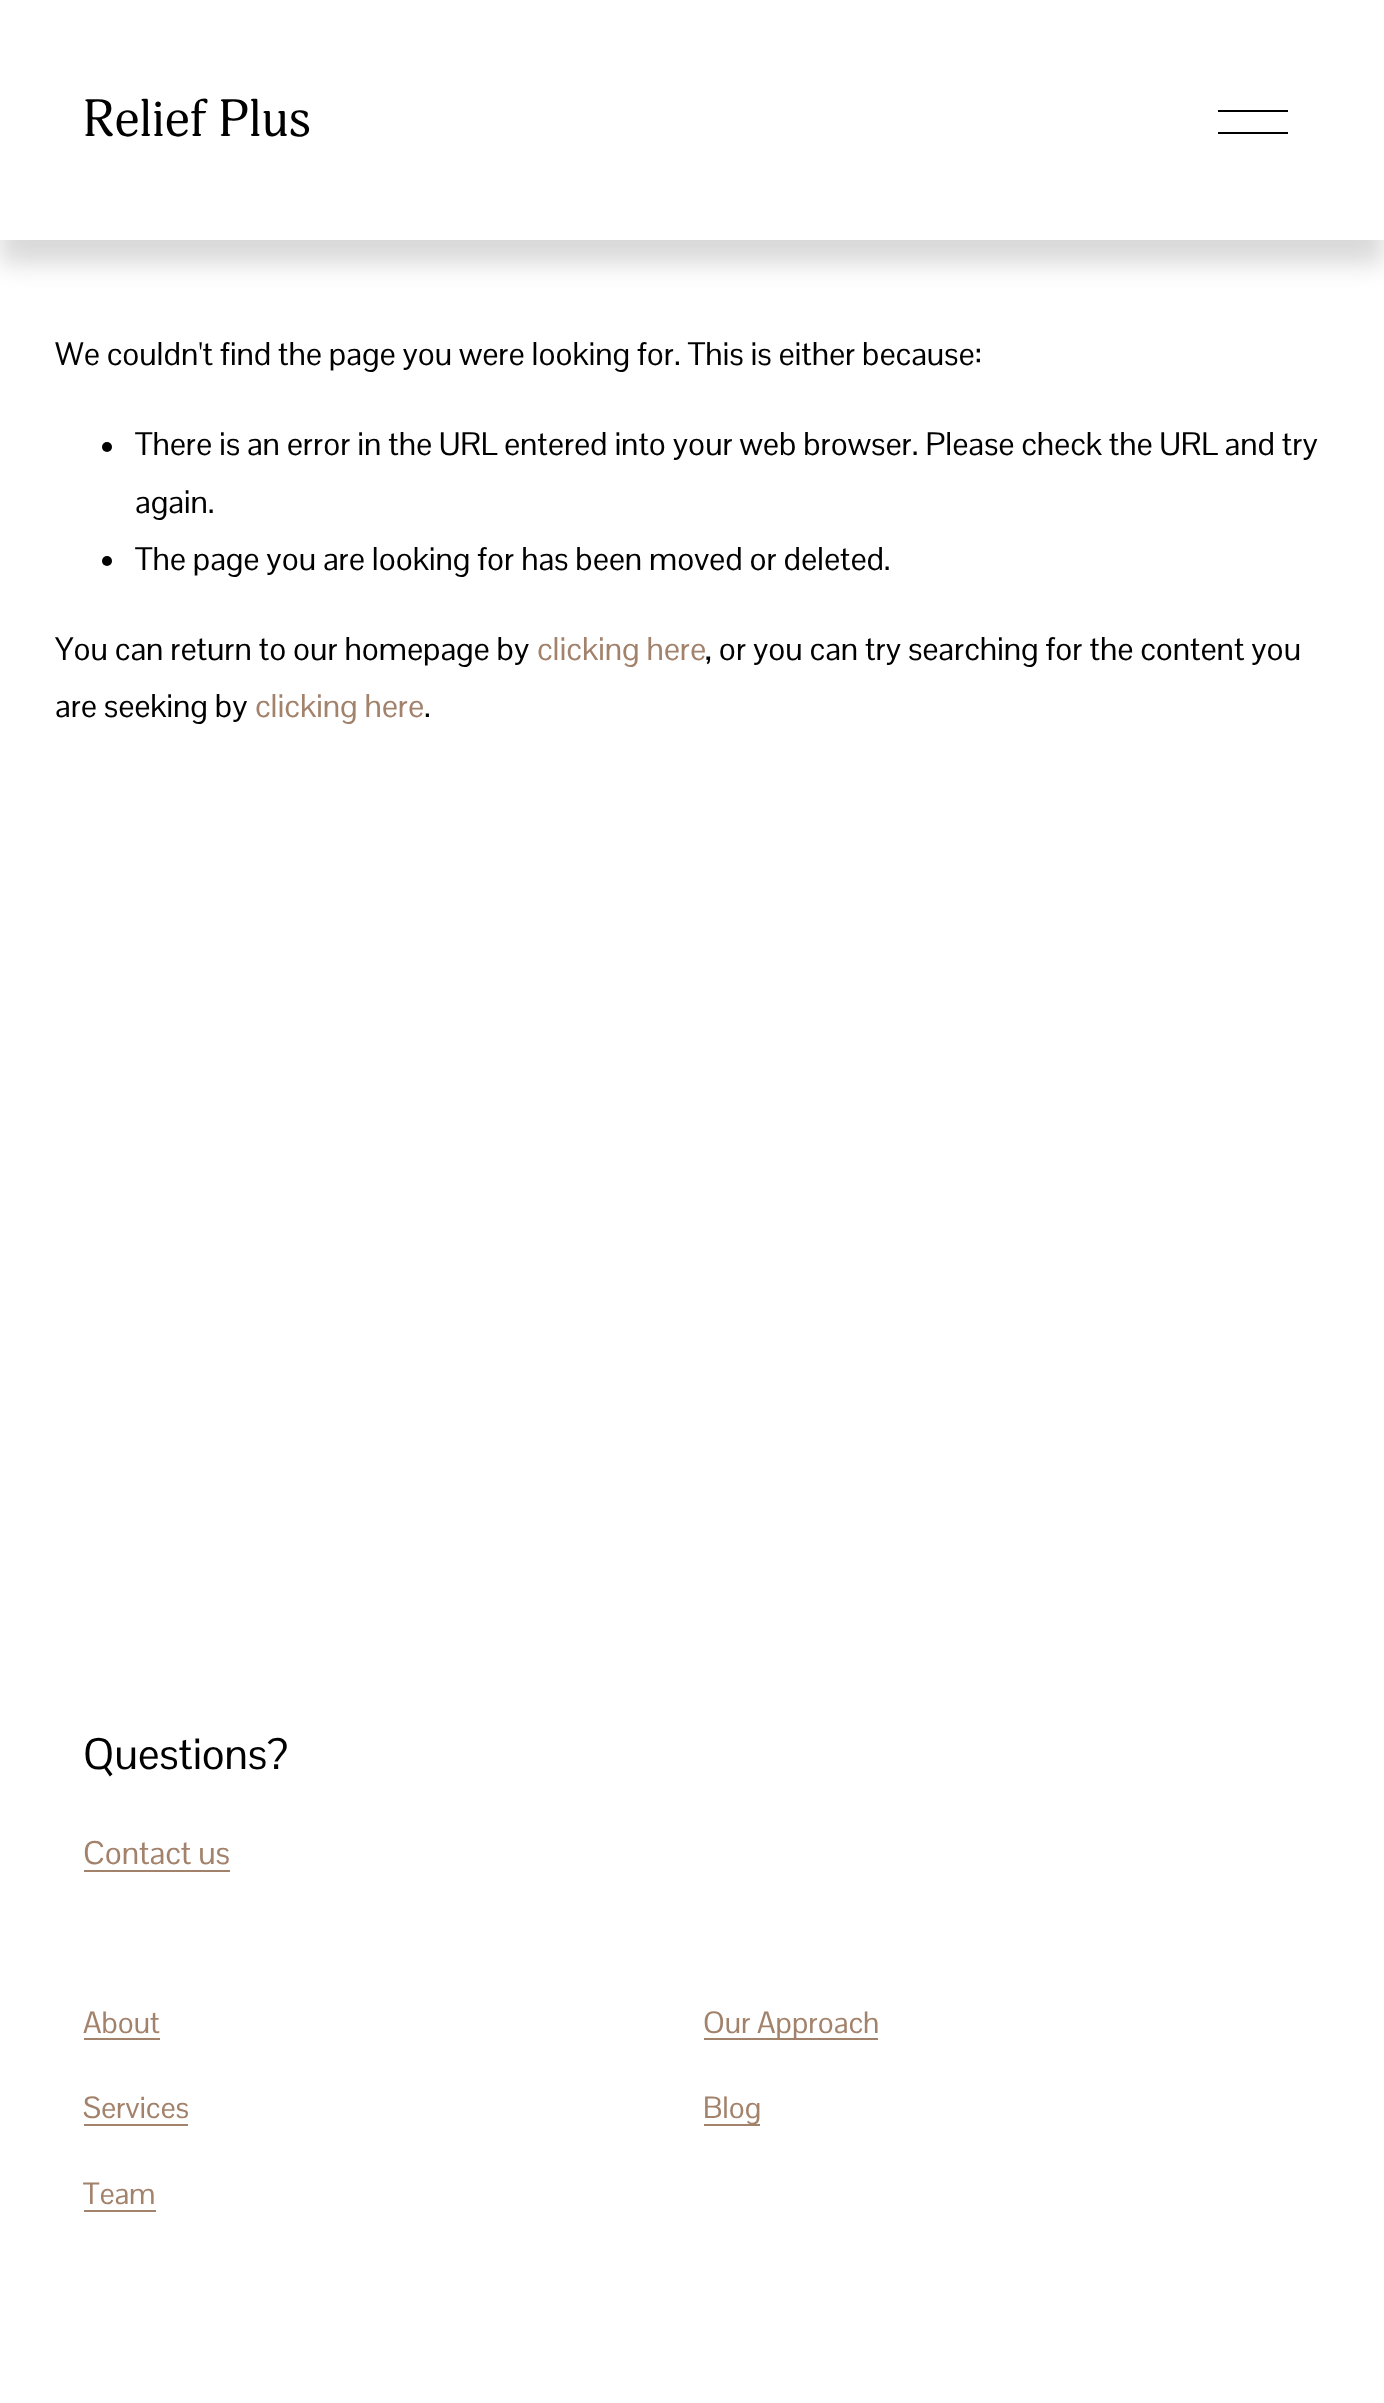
<svg xmlns="http://www.w3.org/2000/svg" width="1384" height="2403" viewBox="0 0 1384 2403">
  <style>
    .t1 { font: 51.5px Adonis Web; fill: #000; }
    .t2 { font: 32px Pontano Sans; fill: #000; }
    .t3 { font: 32px Pontano Sans; fill: #a3826c; }
    .t4 { font: 43px Pontano Sans; fill: #000; }
    .t5 { font: 30px Pontano Sans; fill: #a3826c; }
  </style>
  <defs>
    <clipPath id="clip1"><rect x="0" y="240" width="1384" height="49"/></clipPath>
  </defs>
  <rect width="100%" height="100%" fill="#fff"/>
  <g clip-path="url(#clip1)">
    <rect x="0" y="24" width="1384" height="240" fill="#d9d9d9" filter="blur(12px)"/>
  </g>
  <text x="83" y="136" class="t1">Relief Plus</text>
  <rect x="1218" y="110" width="70" height="2" fill="#000"/>
  <rect x="1218" y="132" width="70" height="2" fill="#000"/>
  <text x="55" y="365" class="t2">We couldn't find the page you were looking for. This is either because:</text>
  <circle cx="107" cy="447" r="5" fill="#000"/>
  <text x="135" y="455" class="t2">There is an error in the URL entered into your web browser. Please check the URL and try</text>
  <text x="135" y="513" class="t2">again.</text>
  <circle cx="107" cy="561" r="5" fill="#000"/>
  <text x="135" y="570" class="t2">The page you are looking for has been moved or deleted.</text>
  <text x="55" y="660" class="t2">You can return to our homepage by</text>
  <text x="537" y="660" class="t3">clicking here</text>
  <text x="705" y="660" class="t2">, or you can try searching for the content you</text>
  <text x="55" y="717" class="t2">are seeking by</text>
  <text x="255" y="717" class="t3">clicking here</text>
  <text x="424" y="717" class="t2">.</text>
  <text x="83" y="1769" class="t4">Questions?</text>
  <text x="83" y="1864" class="t3">Contact us</text>
  <rect x="84" y="1870" width="146" height="2" fill="#a3826c"/>
  <text x="83" y="2033" class="t5">About</text>
  <rect x="84" y="2038" width="76" height="2" fill="#a3826c"/>
  <text x="83" y="2118" class="t5">Services</text>
  <rect x="84" y="2124" width="104" height="2" fill="#a3826c"/>
  <text x="83" y="2204" class="t5">Team</text>
  <rect x="84" y="2210" width="72" height="2" fill="#a3826c"/>
  <rect x="704" y="2038" width="174" height="2" fill="#a3826c"/>
  <text x="703" y="2033" class="t5">Our Approach</text>
  <rect x="704" y="2124" width="56" height="2" fill="#a3826c"/>
  <text x="703" y="2118" class="t5">Blog</text>
</svg>
